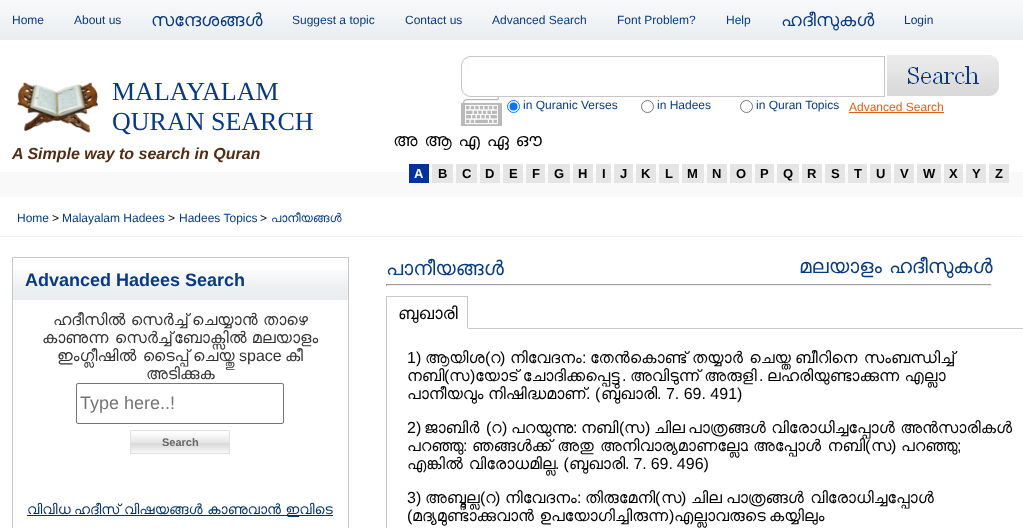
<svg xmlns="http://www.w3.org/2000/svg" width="1023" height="528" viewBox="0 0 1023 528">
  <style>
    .t1 { font: 12px Liberation Sans; fill: #073a80; }
    .t2 { font: 18px FreeSans; fill: #073a80; }
    .t3 { font: 26px Liberation Serif; fill: #073a80; }
    .t4 { font: italic bold 16px Liberation Sans; fill: #512d14; }
    .t5 { font: 12px Liberation Sans; fill: #de6012; }
    .t6 { font: 18px FreeSans; fill: #000; }
    .t7 { font: bold 13px Liberation Sans; fill: #fff; }
    .t8 { font: bold 13px Liberation Sans; fill: #000; }
    .t9 { font: 12px Liberation Sans; fill: #000; }
    .t10 { font: 12px FreeSans; fill: #073a80; }
    .t11 { font: bold 18px Liberation Sans; fill: #073a80; }
    .t12 { font: 16px FreeSans; fill: #333; }
    .t13 { font: 16px Liberation Sans; fill: #333; }
    .t14 { font: 18px Liberation Sans; fill: #757575; }
    .t15 { font: bold 11px Liberation Sans; fill: #666; }
    .t16 { font: 14px FreeSans; fill: #036; }
    .t17 { font: 20px FreeSans; fill: #073a80; }
    .t18 { font: 17px FreeSans; fill: #000; }
    .t19 { font: 16px Liberation Sans; fill: #000; }
    .t20 { font: 16px FreeSans; fill: #000; }
  </style>
  <rect width="100%" height="100%" fill="#fff"/>
  <image x="0" y="0" width="1023" height="40" href="images/1.png"/>
  <text x="12" y="24" class="t1">Home</text>
  <text x="74" y="24" class="t1">About us</text>
  <text x="151" y="26" class="t2">സന്ദേശങ്ങള്‍</text>
  <text x="292" y="24" class="t1">Suggest a topic</text>
  <text x="405" y="24" class="t1">Contact us</text>
  <text x="492" y="24" class="t1">Advanced Search</text>
  <text x="617" y="24" class="t1">Font Problem?</text>
  <text x="726" y="24" class="t1">Help</text>
  <text x="781" y="26" class="t2">ഹദീസുകള്‍</text>
  <text x="904" y="24" class="t1">Login</text>
  <rect x="0" y="172" width="1023" height="25" fill="#f9f9fa"/>
  <image x="17" y="82" width="81" height="51" href="images/2.png"/>
  <text x="112" y="100" class="t3">MALAYALAM</text>
  <text x="112" y="130" class="t3">QURAN SEARCH</text>
  <text x="12" y="159" class="t4">A Simple way to search in Quran</text>
  <image x="461" y="55" width="424" height="42" href="images/3.png"/>
  <image x="887" y="55" width="112" height="41" href="images/4.png"/>
  <image x="461" y="97" width="41" height="29" href="images/5.png"/>
  <circle cx="513.5" cy="106.5" r="6" fill="none" stroke="#0075ff"/>
  <circle cx="513.5" cy="106.5" r="4" fill="#0075ff"/>
  <text x="523" y="109" class="t1">in Quranic Verses</text>
  <circle cx="647.5" cy="106.5" r="6" fill="none" stroke="#767676"/>
  <text x="657" y="109" class="t1">in Hadees</text>
  <circle cx="746.5" cy="106.5" r="6" fill="none" stroke="#767676"/>
  <text x="756" y="109" class="t1">in Quran Topics</text>
  <text x="849" y="111" class="t5">Advanced Search</text>
  <rect x="849" y="112" width="95" height="1" fill="#de6012"/>
  <text x="393" y="146" word-spacing="-0.5" class="t6">അ ആ എ ഏ ഔ</text>
  <rect x="409" y="164" width="20" height="19" fill="#039"/>
  <text x="414" y="178" class="t7">A</text>
  <rect x="432" y="164" width="21" height="19" fill="#e5e5e5"/>
  <text x="438" y="178" class="t8">B</text>
  <rect x="456" y="164" width="21" height="19" fill="#e5e5e5"/>
  <text x="462" y="178" class="t8">C</text>
  <rect x="480" y="164" width="20" height="19" fill="#e5e5e5"/>
  <text x="485" y="178" class="t8">D</text>
  <rect x="503" y="164" width="20" height="19" fill="#e5e5e5"/>
  <text x="509" y="178" class="t8">E</text>
  <rect x="526" y="164" width="19" height="19" fill="#e5e5e5"/>
  <text x="532" y="178" class="t8">F</text>
  <rect x="548" y="164" width="22" height="19" fill="#e5e5e5"/>
  <text x="554" y="178" class="t8">G</text>
  <rect x="573" y="164" width="20" height="19" fill="#e5e5e5"/>
  <text x="578" y="178" class="t8">H</text>
  <rect x="596" y="164" width="15" height="19" fill="#e5e5e5"/>
  <text x="602" y="178" class="t8">I</text>
  <rect x="614" y="164" width="19" height="19" fill="#e5e5e5"/>
  <text x="620" y="178" class="t8">J</text>
  <rect x="636" y="164" width="20" height="19" fill="#e5e5e5"/>
  <text x="641" y="178" class="t8">K</text>
  <rect x="659" y="164" width="20" height="19" fill="#e5e5e5"/>
  <text x="665" y="178" class="t8">L</text>
  <rect x="682" y="164" width="22" height="19" fill="#e5e5e5"/>
  <text x="687" y="178" class="t8">M</text>
  <rect x="707" y="164" width="20" height="19" fill="#e5e5e5"/>
  <text x="712" y="178" class="t8">N</text>
  <rect x="730" y="164" width="22" height="19" fill="#e5e5e5"/>
  <text x="736" y="178" class="t8">O</text>
  <rect x="755" y="164" width="19" height="19" fill="#e5e5e5"/>
  <text x="760" y="178" class="t8">P</text>
  <rect x="777" y="164" width="22" height="19" fill="#e5e5e5"/>
  <text x="783" y="178" class="t8">Q</text>
  <rect x="802" y="164" width="20" height="19" fill="#e5e5e5"/>
  <text x="807" y="178" class="t8">R</text>
  <rect x="825" y="164" width="20" height="19" fill="#e5e5e5"/>
  <text x="831" y="178" class="t8">S</text>
  <rect x="848" y="164" width="19" height="19" fill="#e5e5e5"/>
  <text x="854" y="178" class="t8">T</text>
  <rect x="870" y="164" width="21" height="19" fill="#e5e5e5"/>
  <text x="876" y="178" class="t8">U</text>
  <rect x="894" y="164" width="20" height="19" fill="#e5e5e5"/>
  <text x="900" y="178" class="t8">V</text>
  <rect x="917" y="164" width="24" height="19" fill="#e5e5e5"/>
  <text x="923" y="178" class="t8">W</text>
  <rect x="944" y="164" width="19" height="19" fill="#e5e5e5"/>
  <text x="949" y="178" class="t8">X</text>
  <rect x="966" y="164" width="20" height="19" fill="#e5e5e5"/>
  <text x="972" y="178" class="t8">Y</text>
  <rect x="989" y="164" width="20" height="19" fill="#e5e5e5"/>
  <text x="995" y="178" class="t8">Z</text>
  <rect x="0" y="236" width="1023" height="1" fill="#efefef"/>
  <text x="17" y="222" class="t1">Home</text>
  <text x="52" y="222" class="t9">&gt;</text>
  <text x="62" y="222" class="t1">Malayalam Hadees</text>
  <text x="168" y="222" class="t9">&gt;</text>
  <text x="179" y="222" class="t1">Hadees Topics</text>
  <text x="260" y="222" class="t9">&gt;</text>
  <text x="271" y="222" class="t10">പാനീയങ്ങള്‍</text>
  <image x="13" y="270" width="335" height="30" href="images/6.png"/>
  <rect x="12.5" y="257.5" width="336" height="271" fill="none" stroke="#c8c8c8"/>
  <text x="25" y="286" class="t11">Advanced Hadees Search</text>
  <text x="53" y="325" word-spacing="-1" class="t12">ഹദീസില്‍ സെര്‍ച്ച്</text>
  <text x="192" y="325" word-spacing="-1" class="t12">ചെയ്യാന്‍ താഴെ</text>
  <text x="42" y="343" class="t12">കാണുന്ന സെര്‍ച്ച്</text>
  <text x="174" y="343" word-spacing="-1" class="t12">ബോക്സില്‍ മലയാളം</text>
  <text x="57" y="361" class="t12">ഇംഗ്ലീഷില്‍ ടൈപ്പ്</text>
  <text x="193" y="361" class="t12">ചെയ്തു</text>
  <text x="239" y="361" class="t13">space</text>
  <text x="285" y="361" class="t12">കീ</text>
  <text x="146" y="379" class="t12">അടിക്കുക</text>
  <rect x="76.5" y="383.5" width="207" height="40" rx="1.5" fill="none" stroke="#767676"/>
  <text x="80" y="409" class="t14">Type here..!</text>
  <image x="131" y="431" width="98" height="22" href="images/7.png"/>
  <rect x="130.5" y="430.5" width="99" height="23" fill="none" stroke="#e0e0e0"/>
  <text x="162" y="446" class="t15">Search</text>
  <text x="27" y="514" class="t16">വിവിധ</text>
  <text x="74" y="514" class="t16">ഹദീസ്</text>
  <rect x="27" y="515" width="306" height="1" fill="#036"/>
  <text x="124" y="514" word-spacing="-1" class="t16">വിഷയങ്ങള്‍ കാണുവാന്‍ ഇവിടെ</text>
  <text x="386" y="275" class="t17">പാനീയങ്ങള്‍</text>
  <text x="799" y="273" word-spacing="-1" class="t17">മലയാളം ഹദീസുകള്‍</text>
  <rect x="386" y="284" width="606" height="1" fill="#9f9f9f"/>
  <rect x="991" y="284" width="1" height="2" fill="#eee"/>
  <rect x="386" y="285" width="606" height="1" fill="#eee"/>
  <rect x="386" y="284" width="1" height="2" fill="#9f9f9f"/>
  <rect x="468" y="328" width="555" height="1" fill="#c8c8c8"/>
  <rect x="386" y="296" width="1" height="33" fill="#c8c8c8"/>
  <rect x="387" y="296" width="81" height="1" fill="#c8c8c8"/>
  <rect x="467" y="296" width="1" height="33" fill="#c8c8c8"/>
  <rect x="467" y="328" width="1" height="1" fill="#fff"/>
  <text x="398" y="319" class="t18">ബുഖാരി</text>
  <path d="M386 329H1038V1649C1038 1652 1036 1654 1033 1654H391C388 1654 386 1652 386 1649ZM387 329H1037V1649C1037 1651 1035 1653 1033 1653H391C389 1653 387 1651 387 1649Z" fill="#c8c8c8" fill-rule="evenodd"/>
  <text x="407" y="363" class="t19">1)</text>
  <text x="425" y="363" class="t20">ആയിശ</text>
  <text x="485" y="363" class="t19">(</text>
  <text x="490" y="363" class="t20">റ</text>
  <text x="500" y="363" class="t19">)</text>
  <text x="510" y="363" class="t20">നിവേദനം</text>
  <text x="582" y="363" class="t19">:</text>
  <text x="590" y="363" class="t20">തേന്‍കൊണ്ട്</text>
  <text x="692" y="363" class="t20">തയ്യാര്‍ ചെയ്ത</text>
  <text x="795" y="363" class="t20">ബീറിനെ സംബന്ധിച്ച്</text>
  <text x="407" y="381" class="t20">നബി</text>
  <text x="444" y="381" class="t19">(</text>
  <text x="449" y="381" class="t20">സ</text>
  <text x="470" y="381" class="t19">)</text>
  <text x="475" y="381" word-spacing="-1" class="t20">യോട് ചോദിക്കപ്പെട്ടു</text>
  <text x="622" y="381" class="t19">.</text>
  <text x="630" y="381" word-spacing="-1" class="t20">അവിടുന്ന് അരുളി</text>
  <text x="759" y="381" class="t19">.</text>
  <text x="767" y="381" word-spacing="-1" class="t20">ലഹരിയുണ്ടാക്കുന്ന എല്ലാ</text>
  <text x="407" y="399" class="t20">പാനീയവും</text>
  <text x="488" y="399" class="t20">നിഷിദ്ധമാണ്</text>
  <text x="586" y="399" class="t19">. (</text>
  <text x="601" y="399" class="t20">ബുഖാരി</text>
  <text x="657" y="399" class="t19">. 7. 69. 491)</text>
  <text x="407" y="433" class="t19">2)</text>
  <text x="424" y="433" class="t20">ജാബിര്‍</text>
  <text x="486" y="433" class="t19">(</text>
  <text x="491" y="433" class="t20">റ</text>
  <text x="502" y="433" class="t19">)</text>
  <text x="511" y="433" class="t20">പറയുന്നു</text>
  <text x="573" y="433" class="t19">:</text>
  <text x="581" y="433" class="t20">നബി</text>
  <text x="619" y="433" class="t19">(</text>
  <text x="624" y="433" class="t20">സ</text>
  <text x="645" y="433" class="t19">)</text>
  <text x="654" y="433" class="t20">ചില</text>
  <text x="688" y="433" word-spacing="-1" class="t20">പാത്രങ്ങള്‍ വിരോധിച്ചപ്പോള്‍ അന്‍സാരികള്‍</text>
  <text x="407" y="451" class="t20">പറഞ്ഞു</text>
  <text x="463" y="451" class="t19">:</text>
  <text x="472" y="451" class="t20">ഞങ്ങള്‍ക്ക് അതു</text>
  <text x="600" y="451" class="t20">അനിവാര്യമാണല്ലോ</text>
  <text x="745" y="451" class="t19">.</text>
  <text x="753" y="451" class="t20">അപ്പോള്‍ നബി</text>
  <text x="865" y="451" class="t19">(</text>
  <text x="871" y="451" class="t20">സ</text>
  <text x="891" y="451" class="t19">)</text>
  <text x="901" y="451" class="t20">പറഞ്ഞു</text>
  <text x="957" y="451" class="t19">;</text>
  <text x="407" y="469" word-spacing="-0.5" class="t20">എങ്കില്‍ വിരോധമില്ല</text>
  <text x="555" y="469" word-spacing="-0.5" class="t19">. (</text>
  <text x="569" y="469" class="t20">ബുഖാരി</text>
  <text x="625" y="469" word-spacing="-0.5" class="t19">. 7. 69. 496)</text>
  <text x="407" y="503" class="t19">3)</text>
  <text x="425" y="503" class="t20">അബ്ദുല്ല</text>
  <text x="480" y="503" class="t19">(</text>
  <text x="485" y="503" class="t20">റ</text>
  <text x="495" y="503" class="t19">)</text>
  <text x="505" y="503" class="t20">നിവേദനം</text>
  <text x="577" y="503" class="t19">:</text>
  <text x="585" y="503" class="t20">തിരുമേനി</text>
  <text x="655" y="503" class="t19">(</text>
  <text x="661" y="503" class="t20">സ</text>
  <text x="681" y="503" class="t19">)</text>
  <text x="691" y="503" class="t20">ചില</text>
  <text x="726" y="503" class="t20">പാത്രങ്ങള്‍ വിരോധിച്ചപ്പോള്‍</text>
  <text x="407" y="521" class="t19">(</text>
  <text x="412" y="521" word-spacing="-1" class="t20">മദ്യമുണ്ടാക്കുവാന്‍ ഉപയോഗിച്ചിരുന്ന</text>
  <text x="669" y="521" class="t19">)</text>
  <text x="674" y="521" class="t20">എല്ലാവരുടെ</text>
  <text x="769" y="521" class="t20">കയ്യിലും</text>
</svg>
